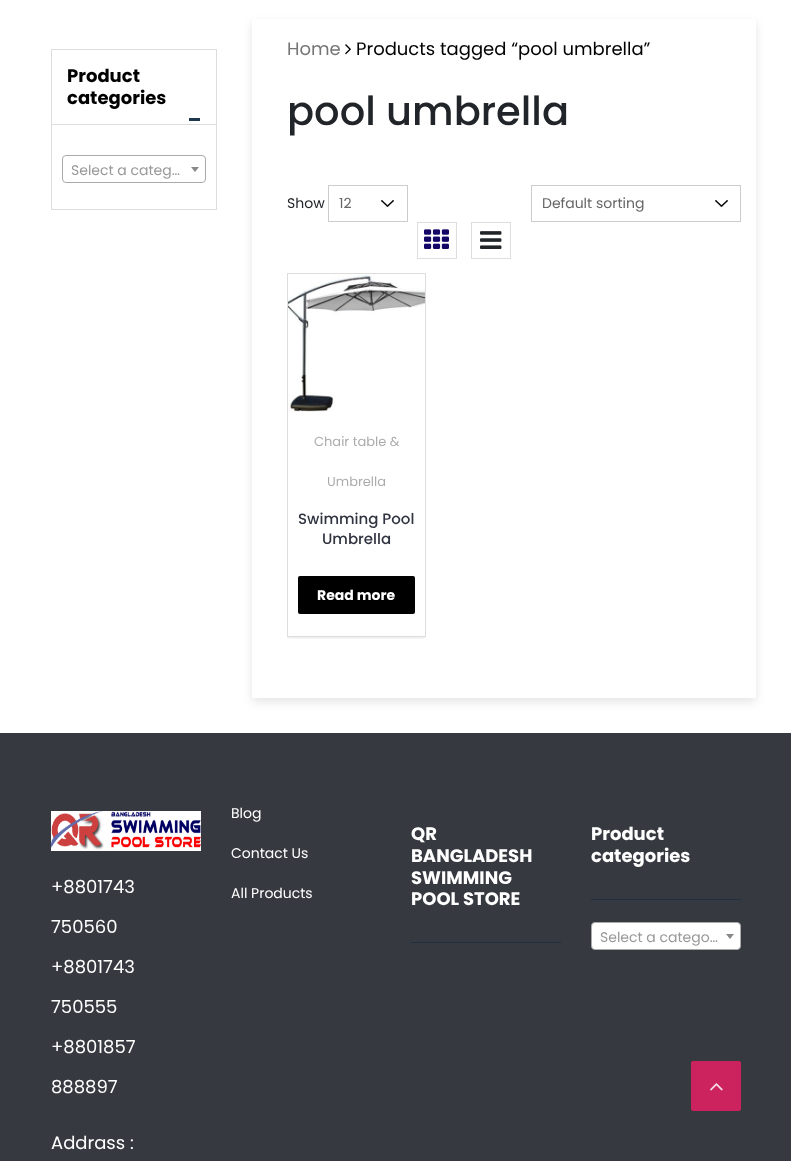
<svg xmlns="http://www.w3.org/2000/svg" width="791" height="1161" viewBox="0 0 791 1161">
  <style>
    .t1 { font: bold 18px Poppins; fill: #000; }
    .t2 { font: 14px Poppins; fill: #999; }
    .t3 { font: 18px Poppins; fill: #767676; }
    .t4 { font: 18px Poppins; fill: #000; }
    .t5 { font: 500 40px Poppins; fill: #212529; }
    .t6 { font: 14px Poppins; fill: #212529; }
    .t7 { font: 14px Poppins; fill: #666; }
    .t8 { font: 13px Poppins; fill: #acacac; }
    .t9 { font: 500 15px Poppins; fill: #2f3440; }
    .t10 { font: bold 14px Poppins; fill: #fff; }
    .t11 { font: 14px Poppins; fill: #fff; }
    .t12 { font: bold 18px Poppins; fill: #fff; }
    .t13 { font: 18px Poppins; fill: #fff; }
  </style>
  <defs>
    <clipPath id="clip1"><path d="M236 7H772V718H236ZM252 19H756V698H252Z" clip-rule="evenodd"/></clipPath>
    <clipPath id="clip2"><rect x="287" y="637" width="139" height="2"/></clipPath>
  </defs>
  <rect width="100%" height="100%" fill="#fff"/>
  <rect x="51.5" y="49.5" width="165" height="160" fill="none" stroke="#ddd"/>
  <text x="67" y="82" class="t1">Product</text>
  <text x="67" y="104" class="t1">categories</text>
  <rect x="189" y="118" width="11" height="3" fill="#1e364e"/>
  <rect x="52" y="124" width="164" height="1" fill="#ddd"/>
  <rect x="62.5" y="155.5" width="143" height="27" rx="3.5" fill="none" stroke="#aaa"/>
  <text x="71" y="175" class="t2">Select a categ…</text>
  <path d="M191 167H199L195 172Z" fill="#888"/>
  <g clip-path="url(#clip1)">
    <rect x="252" y="23" width="504" height="679" fill="#0000001a" filter="blur(5px)"/>
  </g>
  <text x="287" y="55" class="t3">Home</text>
  <image x="345" y="44" width="6" height="11" href="images/1.png"/>
  <text x="356" y="55" class="t4">Products tagged “pool umbrella”</text>
  <text x="287" y="125" class="t5">pool umbrella</text>
  <text x="287" y="208" class="t6">Show</text>
  <image x="381" y="200" width="13" height="7" href="images/2.png"/>
  <rect x="328.5" y="185.5" width="79" height="36" fill="none" stroke="#ccc"/>
  <text x="339" y="208" class="t7">12</text>
  <image x="715" y="200" width="13" height="7" href="images/2.png"/>
  <rect x="531.5" y="185.5" width="209" height="36" fill="none" stroke="#ccc"/>
  <text x="542" y="208" class="t7">Default sorting</text>
  <rect x="417.5" y="222.5" width="39" height="36" fill="none" stroke="#ddd"/>
  <image x="424" y="229" width="25" height="20" href="images/3.png"/>
  <rect x="471.5" y="222.5" width="39" height="36" fill="none" stroke="#ddd"/>
  <image x="480" y="231" width="22" height="18" href="images/4.png"/>
  <g clip-path="url(#clip2)">
    <rect x="288" y="276" width="137" height="362" fill="#0000001a" filter="blur(1.5px)"/>
  </g>
  <rect x="287.5" y="273.5" width="138" height="363" fill="none" stroke="#ddd"/>
  <image x="288" y="274" width="137" height="138" href="images/5.png"/>
  <text x="314" y="446" class="t8">Chair table &amp;</text>
  <text x="327" y="486" class="t8">Umbrella</text>
  <text x="298" y="524" class="t9">Swimming Pool</text>
  <text x="322" y="544" class="t9">Umbrella</text>
  <rect x="298" y="576" width="117" height="38" rx="2" fill="#000"/>
  <text x="317" y="600" class="t10">Read more</text>
  <rect x="0" y="733" width="791" height="428" fill="#36393f"/>
  <text x="231" y="818" class="t11">Blog</text>
  <text x="231" y="858" class="t11">Contact Us</text>
  <text x="231" y="898" class="t11">All Products</text>
  <text x="411" y="840" class="t12">QR</text>
  <text x="411" y="862" class="t12">BANGLADESH</text>
  <text x="411" y="884" class="t12">SWIMMING</text>
  <text x="411" y="905" class="t12">POOL STORE</text>
  <rect x="411" y="942" width="150" height="1" fill="#1f3040"/>
  <text x="591" y="840" class="t12">Product</text>
  <text x="591" y="862" class="t12">categories</text>
  <rect x="591" y="899" width="150" height="1" fill="#1f3040"/>
  <rect x="591.5" y="922.5" width="149" height="27" rx="3.5" fill="#fff" stroke="#aaa"/>
  <text x="600" y="942" class="t2">Select a catego…</text>
  <path d="M726 934H734L730 939Z" fill="#888"/>
  <image x="51" y="811" width="150" height="40" href="images/6.png"/>
  <text x="51" y="893" class="t13">+8801743</text>
  <text x="51" y="933" class="t13">750560</text>
  <text x="51" y="973" class="t13">+8801743</text>
  <text x="51" y="1013" class="t13">750555</text>
  <text x="51" y="1053" class="t13">+8801857</text>
  <text x="51" y="1093" class="t13">888897</text>
  <text x="51" y="1149" class="t13">Addrass :</text>
  <rect x="691.5" y="1061.5" width="49" height="49" rx="1.5" fill="#cc225d" stroke="#cc225d"/>
  <image x="710" y="1083" width="13" height="8" href="images/7.png"/>
</svg>
